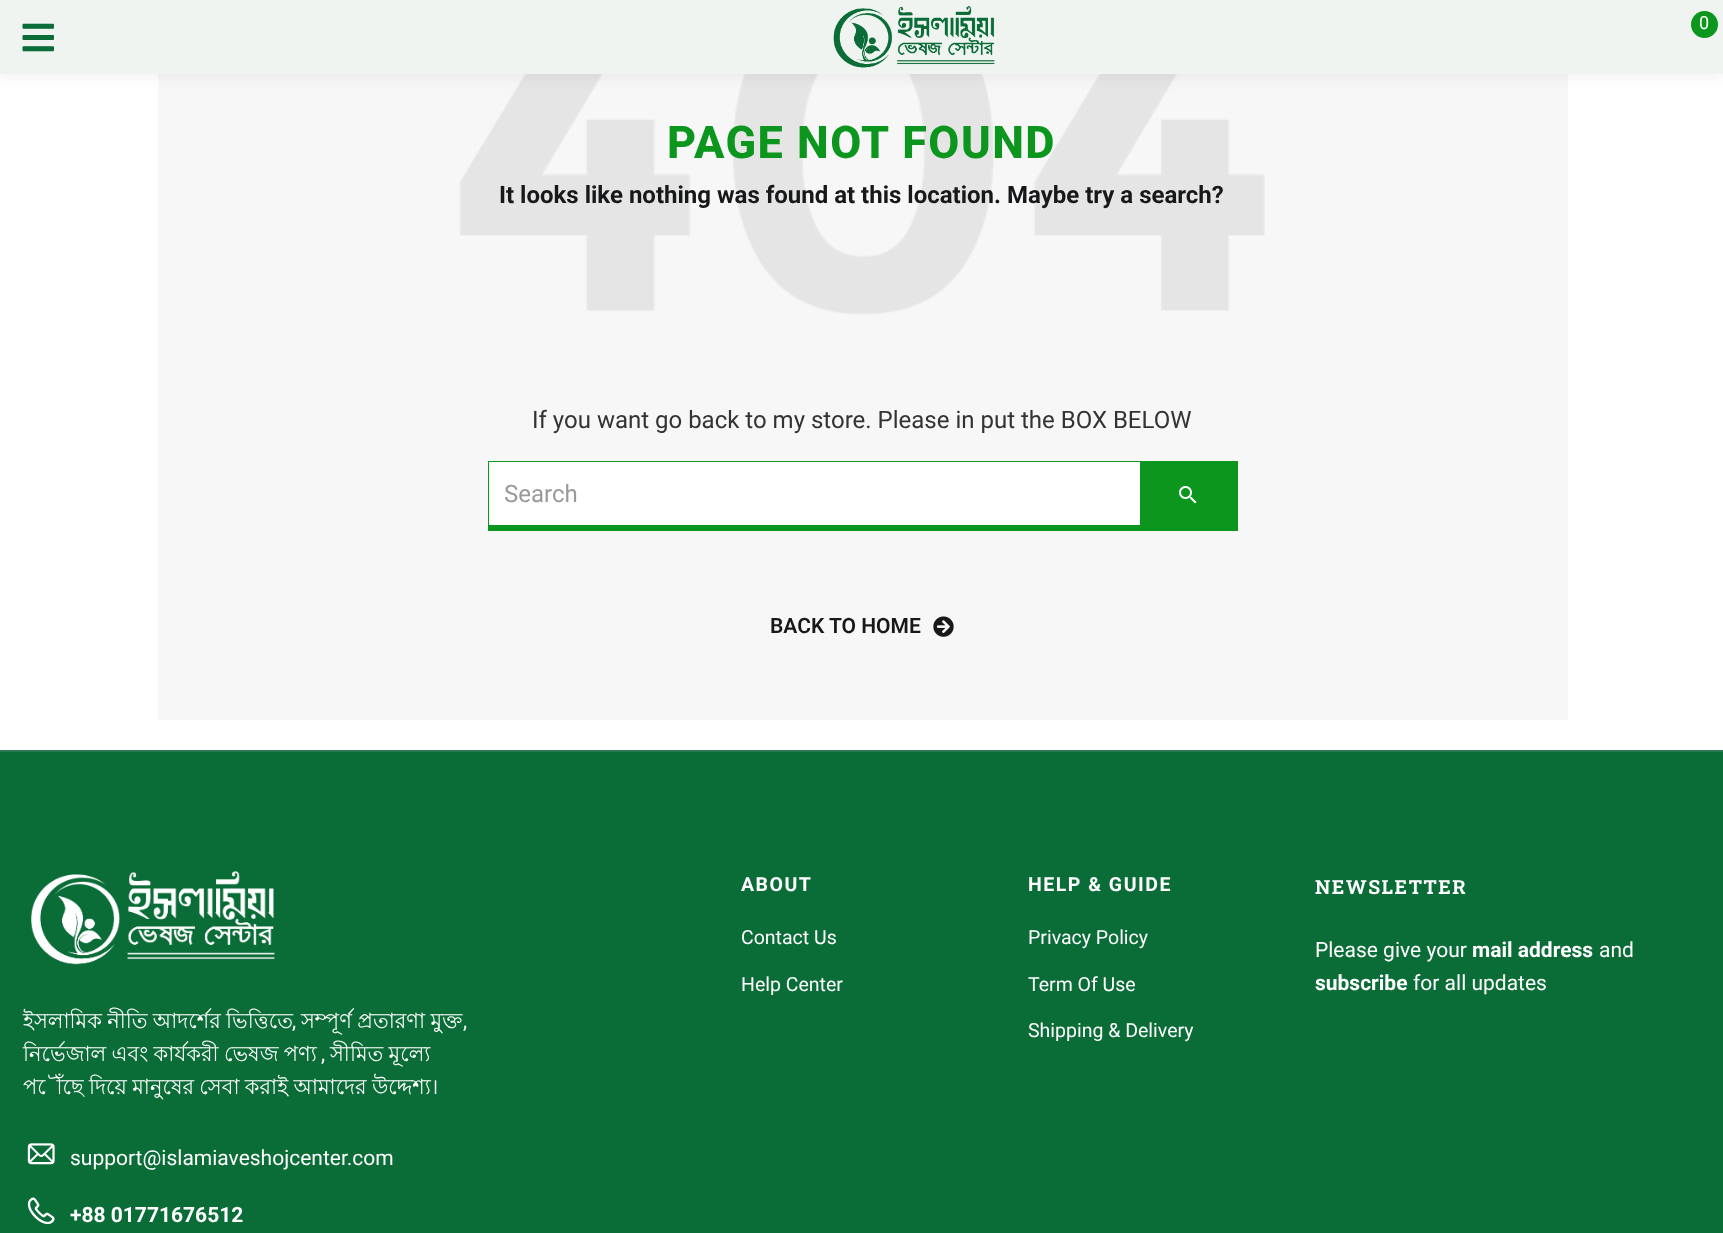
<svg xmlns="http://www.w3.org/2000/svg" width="1723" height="1233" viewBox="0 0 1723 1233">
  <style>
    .t1 { font: 18px Roboto; fill: #fff; }
    .t2 { font: 800 45px Roboto; letter-spacing: 1.5px; fill: #0c961e; }
    .t3 { font: bold 24px Roboto; fill: #17181a; }
    .t4 { font: 24px Roboto; fill: #333; }
    .t5 { font: 24px Roboto; fill: #999; }
    .t6 { font: 600 21px Roboto; fill: #17181a; }
    .t7 { font: bold 19.5px Roboto; letter-spacing: 1.5px; fill: #fff; }
    .t8 { font: 19.5px Roboto; fill: #fff; }
    .t9 { font: bold 19.5px Roboto Slab; letter-spacing: 1.5px; fill: #fff; }
    .t10 { font: 21px Roboto; fill: #fff; }
    .t11 { font: bold 21px Roboto; fill: #fff; }
    .t12 { font: 21px Lohit Bengali; fill: #fff; }
  </style>
  <rect width="100%" height="100%" fill="#fff"/>
  <rect x="158" y="74" width="1410" height="646" fill="#f7f7f7"/>
  <image x="459" y="74" width="806" height="241" href="images/3.png"/>
  <rect x="0" y="3" width="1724" height="74" fill="#0000000f" filter="blur(7.5px)"/>
  <rect x="0" y="0" width="1723" height="74" fill="#eff4f1"/>
  <image x="22" y="23" width="32" height="29" href="images/1.png"/>
  <image x="833" y="6" width="162" height="62" href="images/2.png"/>
  <circle cx="1704.5" cy="24.5" r="13.5" fill="#0c961e"/>
  <text x="1699" y="29" class="t1">0</text>
  <text x="667" y="158" class="t2">PAGE NOT FOUND</text>
  <text x="499" y="203" class="t3">It looks like nothing was found at this location. Maybe try a search?</text>
  <text x="532" y="428" class="t4">If you want go back to my store. Please in put the BOX BELOW</text>
  <rect x="488" y="461" width="750" height="70" fill="#0c961e"/>
  <rect x="489" y="462" width="651" height="63" fill="#fff"/>
  <text x="504" y="502" class="t5">Search</text>
  <image x="1179" y="486" width="18" height="18" href="images/4.png"/>
  <text x="770" y="633" class="t6">BACK TO HOME</text>
  <image x="933" y="616" width="21" height="21" href="images/5.png"/>
  <rect x="0" y="752" width="1723" height="481" fill="#0a6c37"/>
  <rect x="0" y="750" width="1723" height="2" fill="#2a7853"/>
  <text x="741" y="891" class="t7">ABOUT</text>
  <text x="741" y="944" class="t8">Contact Us</text>
  <text x="741" y="991" class="t8">Help Center</text>
  <text x="1028" y="891" class="t7">HELP &amp; GUIDE</text>
  <text x="1028" y="944" class="t8">Privacy Policy</text>
  <text x="1028" y="991" class="t8">Term Of Use</text>
  <text x="1028" y="1037" class="t8">Shipping &amp; Delivery</text>
  <text x="1315" y="894" class="t9">NEWSLETTER</text>
  <text x="1315" y="957" class="t10">Please give your</text>
  <text x="1472" y="957" class="t11">mail address</text>
  <text x="1599" y="957" class="t10">and</text>
  <text x="1315" y="990" class="t11">subscribe</text>
  <text x="1413" y="990" class="t10">for all updates</text>
  <image x="31" y="870" width="244" height="95" href="images/6.png"/>
  <text x="23" y="1028" word-spacing="-0.5" class="t12">ইসলামিক নীতি আদর্শের ভিত্তিতে</text>
  <text x="292" y="1028" class="t10">,</text>
  <text x="301" y="1028" word-spacing="-0.5" class="t12">সম্পূর্ণ প্রতারণা মুক্ত</text>
  <text x="463" y="1028" class="t10">,</text>
  <text x="23" y="1061" word-spacing="-0.5" class="t12">নির্ভেজাল এবং কার্যকরী ভেষজ পণ্য</text>
  <text x="321" y="1061" class="t10">,</text>
  <text x="330" y="1061" word-spacing="-0.5" class="t12">সীমিত মূল্যে</text>
  <text x="23" y="1094" word-spacing="-0.5" class="t12">পৌঁছে দিয়ে মানুষের সেবা করাই আমাদের উদ্দেশ্য।</text>
  <image x="27" y="1143" width="28" height="22" href="images/7.png"/>
  <text x="70" y="1165" class="t10">support@islamiaveshojcenter.com</text>
  <image x="27" y="1197" width="28" height="28" href="images/8.png"/>
  <text x="70" y="1222" class="t11">+88 01771676512</text>
</svg>
